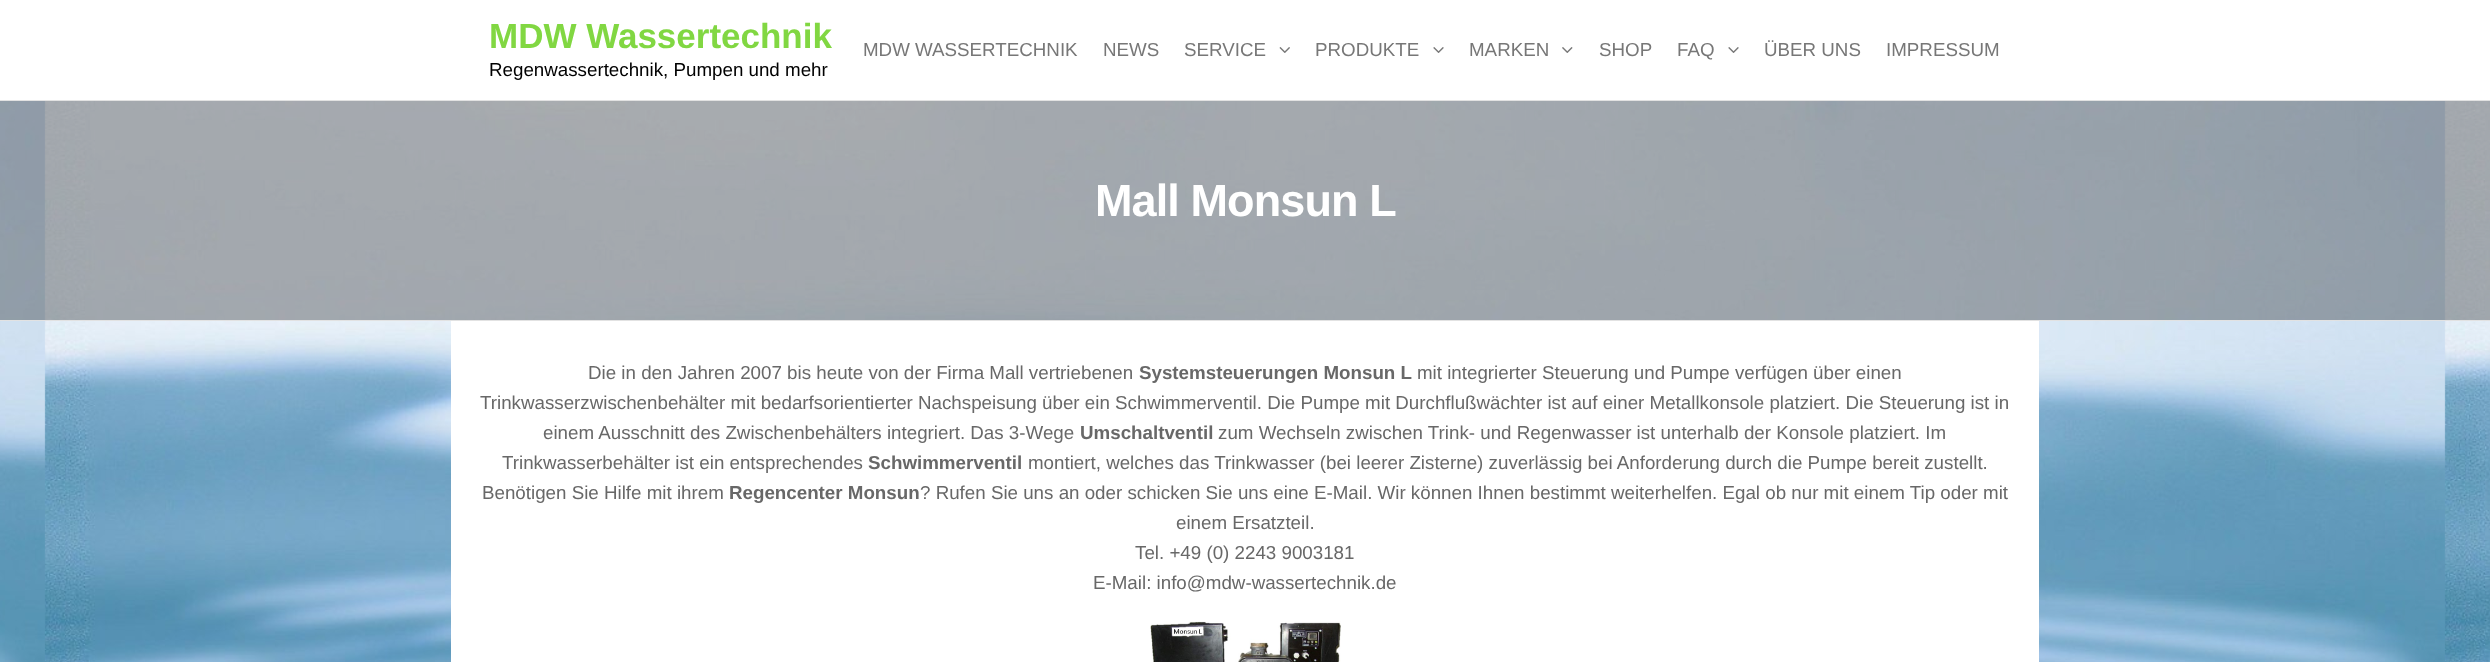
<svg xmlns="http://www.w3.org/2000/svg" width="2490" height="662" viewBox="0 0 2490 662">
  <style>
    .t1 { font: bold 35px Liberation Sans; fill: #81d742; }
    .t2 { font: 18.75px Liberation Sans; fill: #000; }
    .t3 { font: 18.75px Liberation Sans; fill: #777; }
    .t4 { font: bold 45px Liberation Sans; letter-spacing: -0.9px; fill: #fff; }
    .t5 { font: 18.75px Liberation Sans; fill: #686868; }
    .t6 { font: bold 18.75px Liberation Sans; fill: #686868; }
  </style>
  <rect width="100%" height="100%" fill="#fff"/>
  <image x="0" y="101" width="2490" height="561" href="images/1.png"/>
  <rect x="0" y="100" width="2490" height="1" fill="#e2e2e2"/>
  <text x="489" y="48" class="t1">MDW Wassertechnik</text>
  <text x="489" y="76" class="t2">Regenwassertechnik, Pumpen und mehr</text>
  <text x="863" y="56" class="t3">MDW WASSERTECHNIK</text>
  <text x="1103" y="56" class="t3">NEWS</text>
  <text x="1184" y="56" class="t3">SERVICE</text>
  <image x="1279" y="47" width="11" height="6" href="images/2.png"/>
  <text x="1315" y="56" class="t3">PRODUKTE</text>
  <image x="1433" y="47" width="11" height="6" href="images/3.png"/>
  <text x="1469" y="56" class="t3">MARKEN</text>
  <image x="1562" y="47" width="11" height="6" href="images/4.png"/>
  <text x="1599" y="56" class="t3">SHOP</text>
  <text x="1677" y="56" class="t3">FAQ</text>
  <image x="1728" y="47" width="11" height="6" href="images/3.png"/>
  <text x="1764" y="56" class="t3">ÜBER UNS</text>
  <text x="1886" y="56" class="t3">IMPRESSUM</text>
  <rect x="0" y="320" width="2490" height="1" fill="#e2e2e2"/>
  <rect x="0" y="101" width="2490" height="219" fill="#0000004d"/>
  <text x="1095" y="216" class="t4">Mall Monsun L</text>
  <rect x="451" y="321" width="1588" height="341" fill="#fff"/>
  <text x="588" y="379" class="t5">Die in den Jahren 2007 bis heute von der Firma Mall vertriebenen</text>
  <text x="1139" y="379" class="t6">Systemsteuerungen Monsun L</text>
  <text x="1417" y="379" class="t5">mit integrierter Steuerung und Pumpe verfügen über einen</text>
  <text x="480" y="409" class="t5">Trinkwasserzwischenbehälter mit bedarfsorientierter Nachspeisung über ein Schwimmerventil. Die Pumpe mit Durchflußwächter ist auf einer Metallkonsole platziert. Die Steuerung ist in</text>
  <text x="543" y="439" class="t5">einem Ausschnitt des Zwischenbehälters integriert. Das 3-Wege</text>
  <text x="1080" y="439" class="t6">Umschaltventil</text>
  <text x="1218" y="439" class="t5">zum Wechseln zwischen Trink- und Regenwasser ist unterhalb der Konsole platziert. Im</text>
  <text x="502" y="469" class="t5">Trinkwasserbehälter ist ein entsprechendes</text>
  <text x="868" y="469" class="t6">Schwimmerventil</text>
  <text x="1028" y="469" class="t5">montiert, welches das Trinkwasser (bei leerer Zisterne) zuverlässig bei Anforderung durch die Pumpe bereit zustellt.</text>
  <text x="482" y="499" class="t5">Benötigen Sie Hilfe mit ihrem</text>
  <text x="729" y="499" class="t6">Regencenter Monsun</text>
  <text x="920" y="499" class="t5">? Rufen Sie uns an oder schicken Sie uns eine E-Mail. Wir können Ihnen bestimmt weiterhelfen. Egal ob nur mit einem Tip oder mit</text>
  <text x="1176" y="529" class="t5">einem Ersatzteil.</text>
  <text x="1135" y="559" class="t5">Tel. +49 (0) 2243 9003181</text>
  <text x="1093" y="589" class="t5">E-Mail: info@mdw-wassertechnik.de</text>
  <image x="1150" y="621" width="191" height="41" href="images/5.png"/>
</svg>
